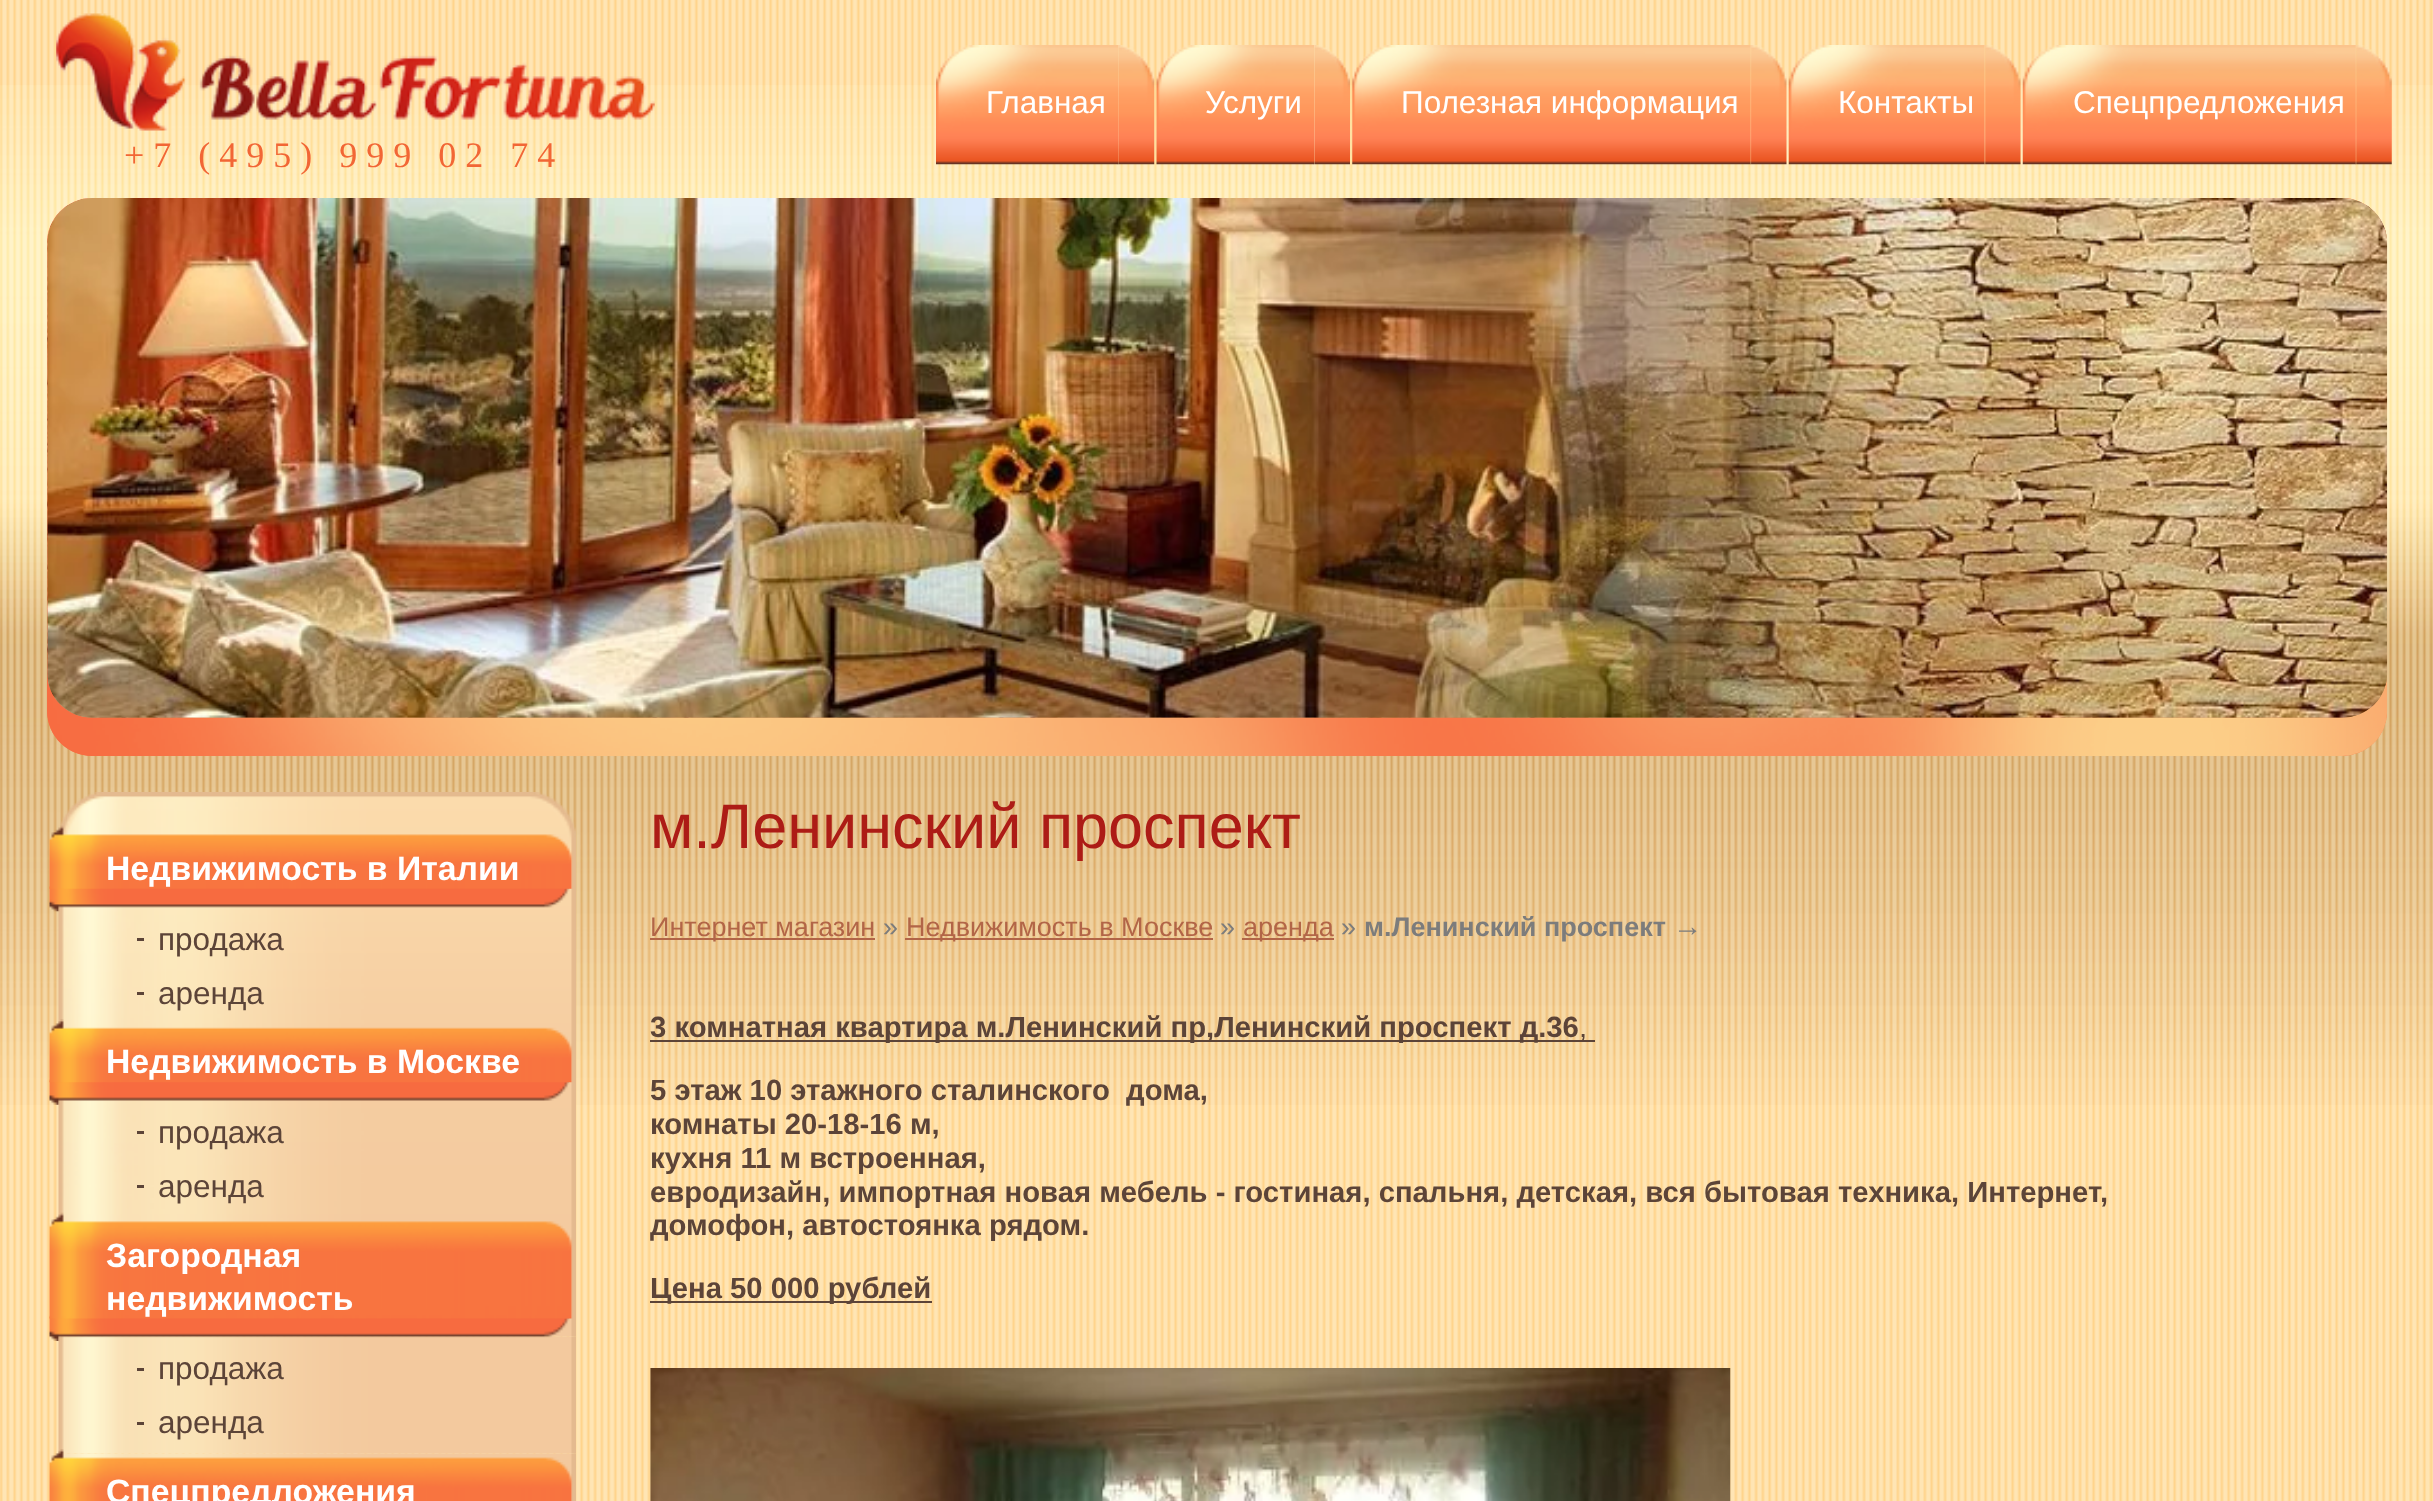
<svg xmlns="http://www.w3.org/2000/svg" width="2433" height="1501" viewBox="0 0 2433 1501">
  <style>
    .t1 { font: 31.5px Liberation Sans; fill: #fff; }
    .t2 { font: 36px Liberation Serif; letter-spacing: 9px; fill: #f26635; }
    .t3 { font: bold 33.75px Liberation Sans; fill: #fff; }
    .t4 { font: 31.5px Liberation Sans; fill: #5c4438; }
    .t5 { font: 63px Liberation Sans; fill: #ad1c16; }
    .t6 { font: 27px Liberation Sans; fill: #b26547; }
    .t7 { font: 27px Liberation Sans; fill: #7c7c7c; }
    .t8 { font: bold 27px Liberation Sans; fill: #7c7c7c; }
    .t9 { font: 29.25px Liberation Sans; fill: #7c7c7c; }
    .t10 { font: bold 29.25px Liberation Sans; fill: #5c4438; }
    .t11 { font: 29.25px Liberation Sans; fill: #5c4438; }
  </style>
  <rect width="100%" height="100%" fill="#fff"/>
  <image x="0" y="0" width="2433" height="1501" href="images/1.png"/>
  <image x="0" y="85" width="2433" height="1020" href="images/2.png"/>
  <image x="56" y="13" width="599" height="118" href="images/3.png"/>
  <image x="1117" y="45" width="38" height="120" href="images/4.png"/>
  <image x="936" y="45" width="183" height="120" href="images/5.png"/>
  <text x="986" y="113" class="t1">Главная</text>
  <image x="1313" y="45" width="37" height="120" href="images/6.png"/>
  <image x="1156" y="45" width="158" height="120" href="images/7.png"/>
  <text x="1205" y="113" class="t1">Услуги</text>
  <image x="1750" y="45" width="37" height="120" href="images/8.png"/>
  <image x="1352" y="45" width="399" height="120" href="images/9.png"/>
  <text x="1401" y="113" class="t1">Полезная информация</text>
  <image x="1984" y="45" width="37" height="120" href="images/10.png"/>
  <image x="1788" y="45" width="197" height="120" href="images/11.png"/>
  <text x="1838" y="113" class="t1">Контакты</text>
  <image x="2355" y="45" width="37" height="120" href="images/12.png"/>
  <image x="2022" y="45" width="334" height="120" href="images/13.png"/>
  <text x="2073" y="113" class="t1">Спецпредложения</text>
  <text x="124" y="167" class="t2">+7 (495) 999 02 74</text>
  <rect x="47" y="198" width="2340" height="558" rx="45" fill="#f77245"/>
  <image x="47" y="589" width="2341" height="167" href="images/14.png"/>
  <image x="47" y="198" width="2340" height="520" href="images/15.png"/>
  <image x="47" y="198" width="2341" height="520" href="images/16.png"/>
  <image x="58" y="792" width="518" height="545" href="images/17.png"/>
  <image x="58" y="1453" width="518" height="48" href="images/26.png"/>
  <image x="58" y="1336" width="518" height="118" href="images/18.png"/>
  <image x="49" y="886" width="521" height="26" href="images/19.png"/>
  <image x="49" y="825" width="524" height="64" href="images/20.png"/>
  <text x="106" y="880" class="t3">Недвижимость в Италии</text>
  <rect x="137" y="938" width="7" height="3" fill="#5c4438"/>
  <text x="158" y="950" class="t4">продажа</text>
  <rect x="137" y="992" width="7" height="3" fill="#5c4438"/>
  <text x="158" y="1004" class="t4">аренда</text>
  <image x="49" y="1079" width="521" height="26" href="images/21.png"/>
  <image x="49" y="1019" width="524" height="64" href="images/22.png"/>
  <text x="106" y="1073" class="t3">Недвижимость в Москве</text>
  <rect x="137" y="1131" width="7" height="3" fill="#5c4438"/>
  <text x="158" y="1143" class="t4">продажа</text>
  <rect x="137" y="1185" width="7" height="3" fill="#5c4438"/>
  <text x="158" y="1197" class="t4">аренда</text>
  <image x="49" y="1315" width="521" height="26" href="images/23.png"/>
  <image x="49" y="1212" width="524" height="107" href="images/24.png"/>
  <text x="106" y="1267" class="t3">Загородная</text>
  <text x="106" y="1310" class="t3">недвижимость</text>
  <rect x="137" y="1368" width="7" height="3" fill="#5c4438"/>
  <text x="158" y="1379" class="t4">продажа</text>
  <rect x="137" y="1422" width="7" height="3" fill="#5c4438"/>
  <text x="158" y="1433" class="t4">аренда</text>
  <image x="49" y="1449" width="524" height="52" href="images/25.png"/>
  <text x="106" y="1503" class="t3">Спецпредложения</text>
  <text x="650" y="848" class="t5">м.Ленинский проспект</text>
  <rect x="650" y="938" width="225" height="2" fill="#b26547"/>
  <text x="650" y="936" class="t6">Интернет магазин</text>
  <text x="883" y="936" class="t7">»</text>
  <rect x="905" y="938" width="308" height="2" fill="#b26547"/>
  <text x="906" y="936" class="t6">Недвижимость в Москве</text>
  <text x="1220" y="936" class="t7">»</text>
  <rect x="1242" y="938" width="92" height="2" fill="#b26547"/>
  <text x="1243" y="936" class="t6">аренда</text>
  <text x="1341" y="936" class="t7">»</text>
  <text x="1364" y="936" class="t8">м.Ленинский проспект</text>
  <text x="1673" y="936" class="t9">→</text>
  <rect x="650" y="1040" width="945" height="2" fill="#5c4438"/>
  <text x="650" y="1037" class="t10">3 комнатная квартира м.Ленинский пр,Ленинский проспект д.36</text>
  <text x="1579" y="1037" class="t11">,</text>
  <text x="650" y="1100" class="t10" xml:space="preserve">5 этаж 10 этажного сталинского  дома,</text>
  <text x="650" y="1134" class="t10">комнаты 20-18-16 м,</text>
  <text x="650" y="1168" class="t10">кухня 11 м встроенная,</text>
  <text x="650" y="1202" class="t10">евродизайн, импортная новая мебель - гостиная, спальня, детская, вся бытовая техника, Интернет,</text>
  <text x="650" y="1235" class="t10">домофон, автостоянка рядом.</text>
  <rect x="650" y="1301" width="282" height="2" fill="#5c4438"/>
  <text x="650" y="1298" class="t10">Цена 50 000 рублей</text>
  <image x="650" y="1368" width="1081" height="133" href="images/27.png"/>
</svg>
